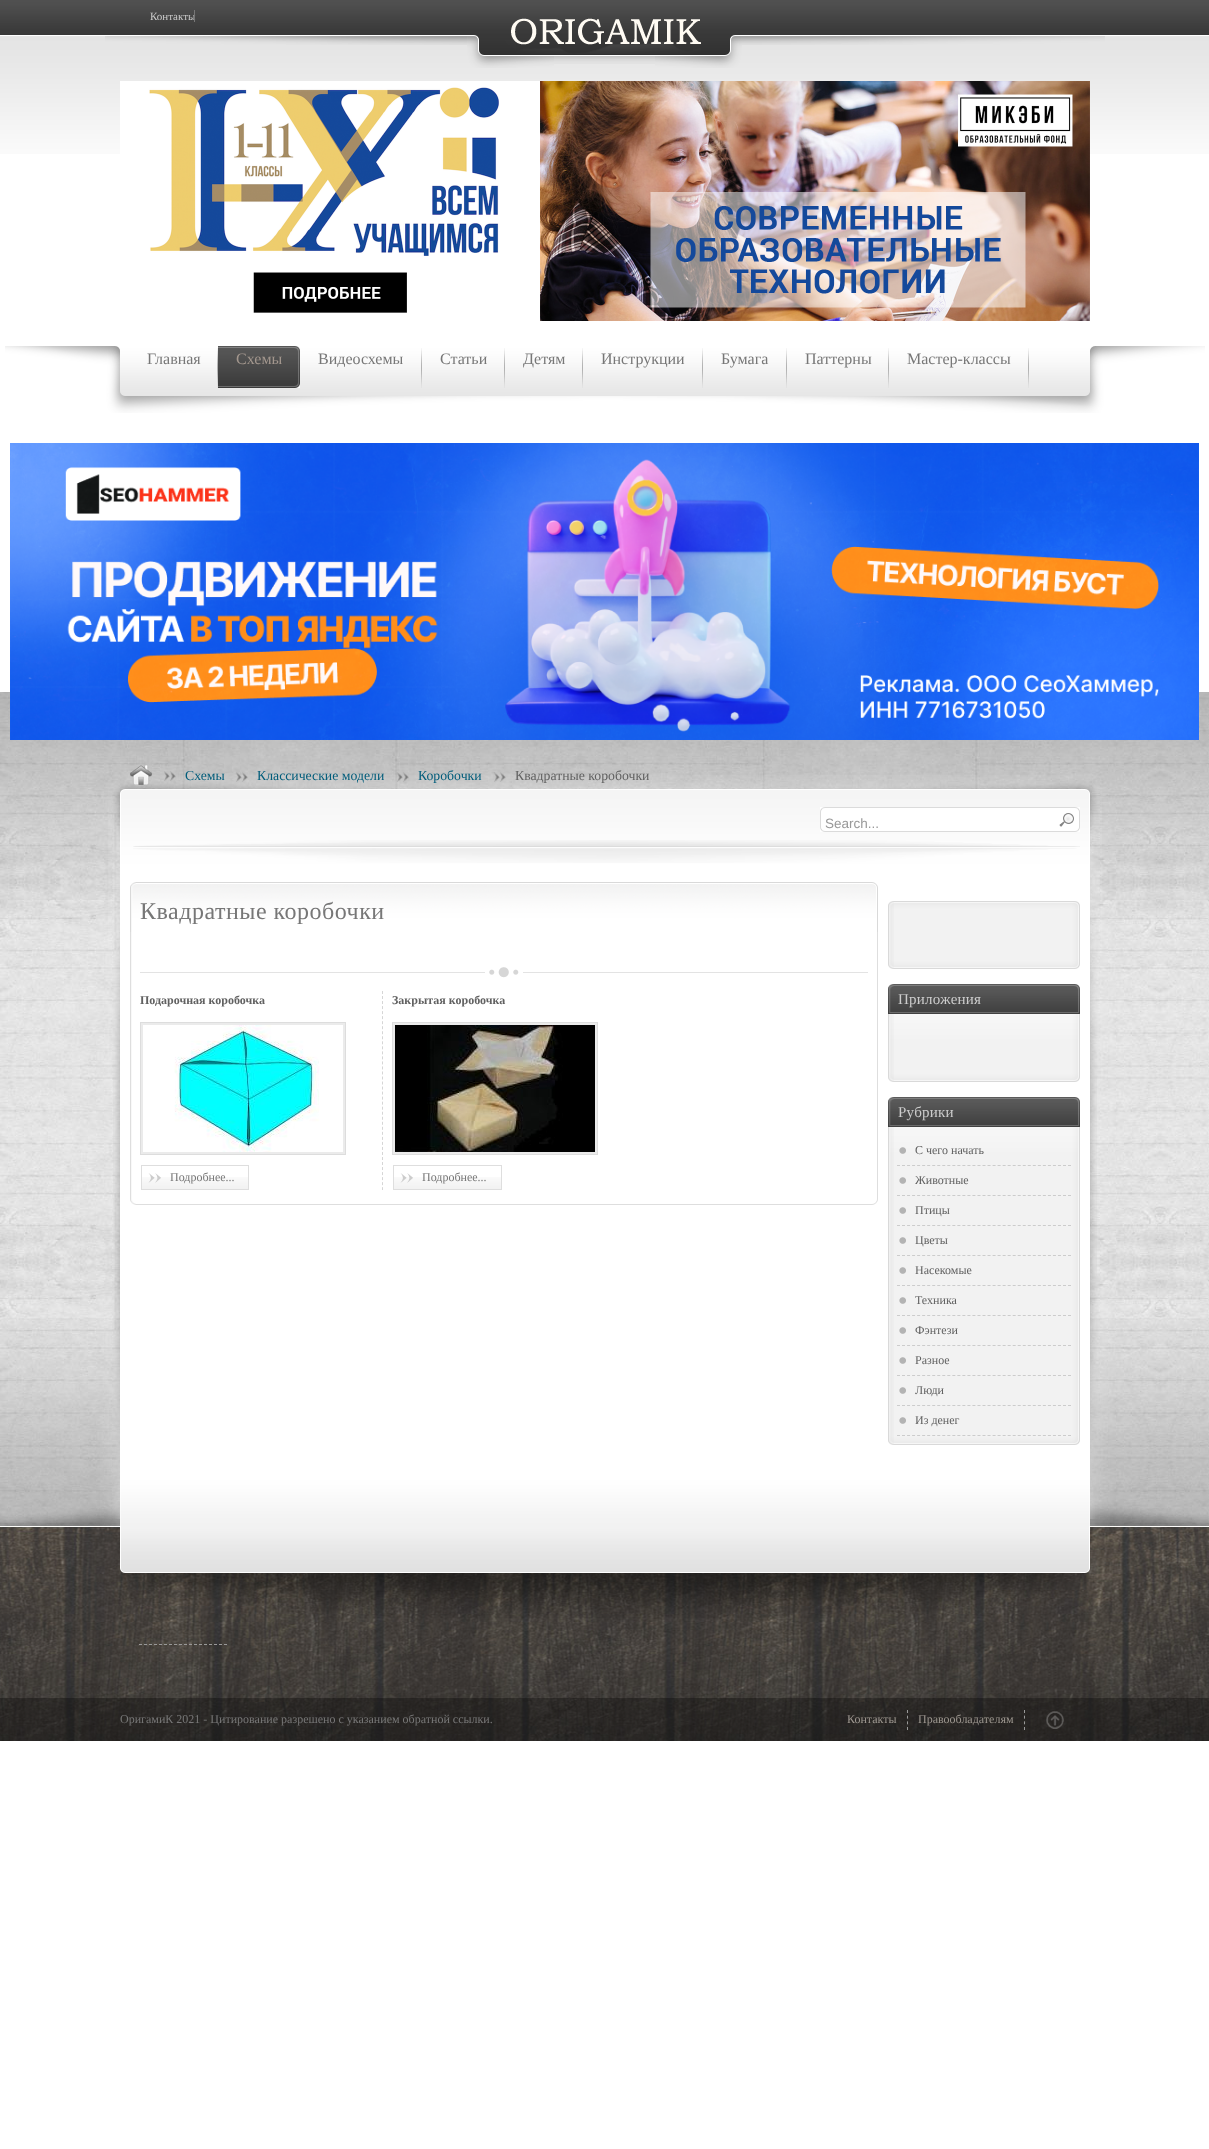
<svg xmlns="http://www.w3.org/2000/svg" width="1209" height="2149" viewBox="0 0 1209 2149">
  <style>
    .t1 { font: 11px Liberation Serif; fill: #ccc; }
    .t2 { font: 16px Liberation Serif; fill: #777; }
    .t3 { font: 16px Liberation Serif; fill: #a3978e; }
    .t4 { font: 13.75px Liberation Serif; fill: #005c7a; }
    .t5 { font: 13.75px Liberation Serif; fill: #616161; }
    .t6 { font: 13.5px Liberation Sans; fill: #999; }
    .t7 { font: 24px Liberation Serif; letter-spacing: 0.5px; fill: #777; }
    .t8 { font: bold 12px Liberation Serif; fill: #616161; }
    .t9 { font: 12px Liberation Serif; fill: #777; }
    .t10 { font: 15px Liberation Serif; letter-spacing: 0.25px; fill: #ccc; }
    .t11 { font: 12px Liberation Serif; fill: #616161; }
    .t12 { font: 12px Liberation Serif; fill: #9c968f; }
  </style>
  <rect width="100%" height="100%" fill="#fff"/>
  <image x="0" y="0" width="1209" height="35" href="images/1.png"/>
  <text x="150" y="20" class="t1">Контакты</text>
  <rect x="194" y="10" width="1" height="12" fill="#777"/>
  <image x="0" y="36" width="1209" height="118" href="images/6.png"/>
  <image x="105" y="36" width="1000" height="9" href="images/7.png"/>
  <image x="554" y="35" width="101" height="29" href="images/2.png"/>
  <image x="467" y="35" width="87" height="33" href="images/3.png"/>
  <image x="655" y="35" width="87" height="33" href="images/4.png"/>
  <image x="511" y="18" width="190" height="36" href="images/5.png"/>
  <image x="120" y="81" width="970" height="240" href="images/8.png"/>
  <image x="5" y="346" width="1200" height="67" href="images/9.png"/>
  <image x="217" y="348" width="1" height="40" href="images/10.png"/>
  <text x="147" y="364" class="t2">Главная</text>
  <image x="218" y="346" width="82" height="42" href="images/11.png"/>
  <text x="236" y="364" class="t3">Схемы</text>
  <image x="421" y="348" width="1" height="40" href="images/10.png"/>
  <text x="318" y="364" class="t2">Видеосхемы</text>
  <image x="504" y="348" width="1" height="40" href="images/10.png"/>
  <text x="440" y="364" class="t2">Статьи</text>
  <image x="582" y="348" width="1" height="40" href="images/10.png"/>
  <text x="523" y="364" class="t2">Детям</text>
  <image x="702" y="348" width="1" height="40" href="images/10.png"/>
  <text x="601" y="364" class="t2">Инструкции</text>
  <image x="786" y="348" width="1" height="40" href="images/10.png"/>
  <text x="721" y="364" class="t2">Бумага</text>
  <image x="888" y="348" width="1" height="40" href="images/10.png"/>
  <text x="805" y="364" class="t2">Паттерны</text>
  <image x="1028" y="348" width="1" height="40" href="images/10.png"/>
  <text x="907" y="364" class="t2">Мастер-классы</text>
  <image x="0" y="692" width="1209" height="834" href="images/13.png"/>
  <image x="0" y="692" width="1209" height="208" href="images/14.png"/>
  <image x="10" y="443" width="1189" height="297" href="images/12.png"/>
  <image x="108" y="775" width="994" height="302" href="images/22.png"/>
  <image x="164" y="771" width="12" height="10" href="images/15.png"/>
  <image x="130" y="765" width="22" height="20" href="images/16.png"/>
  <image x="236" y="772" width="12" height="10" href="images/17.png"/>
  <text x="185" y="780" class="t4">Схемы</text>
  <image x="397" y="772" width="12" height="10" href="images/18.png"/>
  <text x="257" y="780" class="t4">Классические модели</text>
  <image x="494" y="772" width="12" height="10" href="images/19.png"/>
  <text x="418" y="780" class="t4">Коробочки</text>
  <text x="515" y="780" class="t5">Квадратные коробочки</text>
  <image x="0" y="1502" width="1209" height="24" href="images/20.png"/>
  <image x="0" y="1318" width="1209" height="208" href="images/21.png"/>
  <image x="113" y="1077" width="984" height="199" href="images/23.png"/>
  <image x="133" y="840" width="947" height="23" href="images/24.png"/>
  <image x="820" y="807" width="260" height="25" href="images/25.png"/>
  <text x="825" y="828" class="t6">Search...</text>
  <image x="136" y="932" width="742" height="273" href="images/26.png"/>
  <image x="130" y="932" width="6" height="273" href="images/27.png"/>
  <image x="136" y="882" width="742" height="50" href="images/28.png"/>
  <image x="130" y="882" width="6" height="50" href="images/29.png"/>
  <text x="140" y="919" class="t7">Квадратные коробочки</text>
  <image x="140" y="967" width="728" height="11" href="images/30.png"/>
  <text x="140" y="1004" class="t8">Подарочная коробочка</text>
  <rect x="140.5" y="1022.5" width="205" height="132" fill="#ebebeb" stroke="#ddd"/>
  <image x="143" y="1025" width="200" height="127" href="images/31.png"/>
  <image x="142" y="1177" width="106" height="12" href="images/32.png"/>
  <rect x="141.5" y="1165.5" width="107" height="24" fill="none" stroke="#dedede"/>
  <image x="148" y="1173" width="13" height="10" href="images/33.png"/>
  <text x="170" y="1181" class="t9">Подробнее...</text>
  <path d="M382.5 991V1190" fill="none" stroke="#d6d6d6" stroke-dasharray="3 2.03"/>
  <text x="392" y="1004" class="t8">Закрытая коробочка</text>
  <rect x="392.5" y="1022.5" width="205" height="132" fill="#ebebeb" stroke="#ddd"/>
  <image x="395" y="1025" width="200" height="127" href="images/34.png"/>
  <image x="394" y="1177" width="107" height="12" href="images/35.png"/>
  <rect x="393.5" y="1165.5" width="108" height="24" fill="none" stroke="#dedede"/>
  <image x="400" y="1173" width="13" height="10" href="images/33.png"/>
  <text x="422" y="1181" class="t9">Подробнее...</text>
  <image x="894" y="911" width="186" height="58" href="images/36.png"/>
  <image x="888" y="911" width="6" height="58" href="images/37.png"/>
  <image x="894" y="901" width="186" height="10" href="images/38.png"/>
  <image x="888" y="901" width="6" height="10" href="images/39.png"/>
  <image x="894" y="1039" width="186" height="43" href="images/40.png"/>
  <image x="888" y="1039" width="6" height="43" href="images/41.png"/>
  <image x="894" y="984" width="186" height="55" href="images/42.png"/>
  <image x="888" y="984" width="6" height="55" href="images/43.png"/>
  <text x="898" y="1004" class="t10">Приложения</text>
  <image x="100" y="1276" width="1010" height="250" href="images/48.png"/>
  <image x="894" y="1152" width="186" height="293" href="images/44.png"/>
  <image x="888" y="1152" width="6" height="293" href="images/45.png"/>
  <image x="894" y="1097" width="186" height="55" href="images/42.png"/>
  <image x="888" y="1097" width="6" height="55" href="images/43.png"/>
  <text x="898" y="1117" class="t10">Рубрики</text>
  <image x="899" y="1147" width="7" height="7" href="images/46.png"/>
  <path d="M897 1165.5H1071" fill="none" stroke="#ccc" stroke-dasharray="3 2.03"/>
  <text x="915" y="1154" class="t11">С чего начать</text>
  <image x="899" y="1177" width="7" height="7" href="images/47.png"/>
  <path d="M897 1195.5H1071" fill="none" stroke="#ccc" stroke-dasharray="3 2.03"/>
  <text x="915" y="1184" class="t11">Животные</text>
  <image x="899" y="1207" width="7" height="7" href="images/47.png"/>
  <path d="M897 1225.5H1071" fill="none" stroke="#ccc" stroke-dasharray="3 2.03"/>
  <text x="915" y="1214" class="t11">Птицы</text>
  <image x="899" y="1237" width="7" height="7" href="images/47.png"/>
  <path d="M897 1255.5H1071" fill="none" stroke="#ccc" stroke-dasharray="3 2.03"/>
  <text x="915" y="1244" class="t11">Цветы</text>
  <image x="899" y="1267" width="7" height="7" href="images/47.png"/>
  <path d="M897 1285.5H1071" fill="none" stroke="#ccc" stroke-dasharray="3 2.03"/>
  <text x="915" y="1274" class="t11">Насекомые</text>
  <image x="899" y="1297" width="7" height="7" href="images/47.png"/>
  <path d="M897 1315.5H1071" fill="none" stroke="#ccc" stroke-dasharray="3 2.03"/>
  <text x="915" y="1304" class="t11">Техника</text>
  <image x="899" y="1327" width="7" height="7" href="images/47.png"/>
  <path d="M897 1345.5H1071" fill="none" stroke="#ccc" stroke-dasharray="3 2.03"/>
  <text x="915" y="1334" class="t11">Фэнтези</text>
  <image x="899" y="1357" width="7" height="7" href="images/47.png"/>
  <path d="M897 1375.5H1071" fill="none" stroke="#ccc" stroke-dasharray="3 2.03"/>
  <text x="915" y="1364" class="t11">Разное</text>
  <image x="899" y="1387" width="7" height="7" href="images/47.png"/>
  <path d="M897 1405.5H1071" fill="none" stroke="#ccc" stroke-dasharray="3 2.03"/>
  <text x="915" y="1394" class="t11">Люди</text>
  <image x="899" y="1417" width="7" height="7" href="images/47.png"/>
  <path d="M897 1435.5H1071" fill="none" stroke="#ccc" stroke-dasharray="3 2.03"/>
  <text x="915" y="1424" class="t11">Из денег</text>
  <image x="0" y="1526" width="1209" height="215" href="images/49.png"/>
  <image x="119" y="1526" width="975" height="92" href="images/50.png"/>
  <rect x="0" y="1698" width="1209" height="43" fill="#0000004d"/>
  <path d="M139 1644.5H227" fill="none" stroke="#999" stroke-dasharray="3 2"/>
  <text x="120" y="1723" class="t9">ОригамиК 2021 - Цитирование разрешено с указанием обратной ссылки.</text>
  <path d="M907.5 1710V1730" fill="none" stroke="#999" stroke-dasharray="3 2.67"/>
  <text x="847" y="1723" class="t12">Контакты</text>
  <path d="M1024.5 1710V1730" fill="none" stroke="#999" stroke-dasharray="3 2.67"/>
  <text x="918" y="1723" class="t12">Правообладателям</text>
  <image x="1046" y="1711" width="18" height="18" href="images/51.png"/>
</svg>
